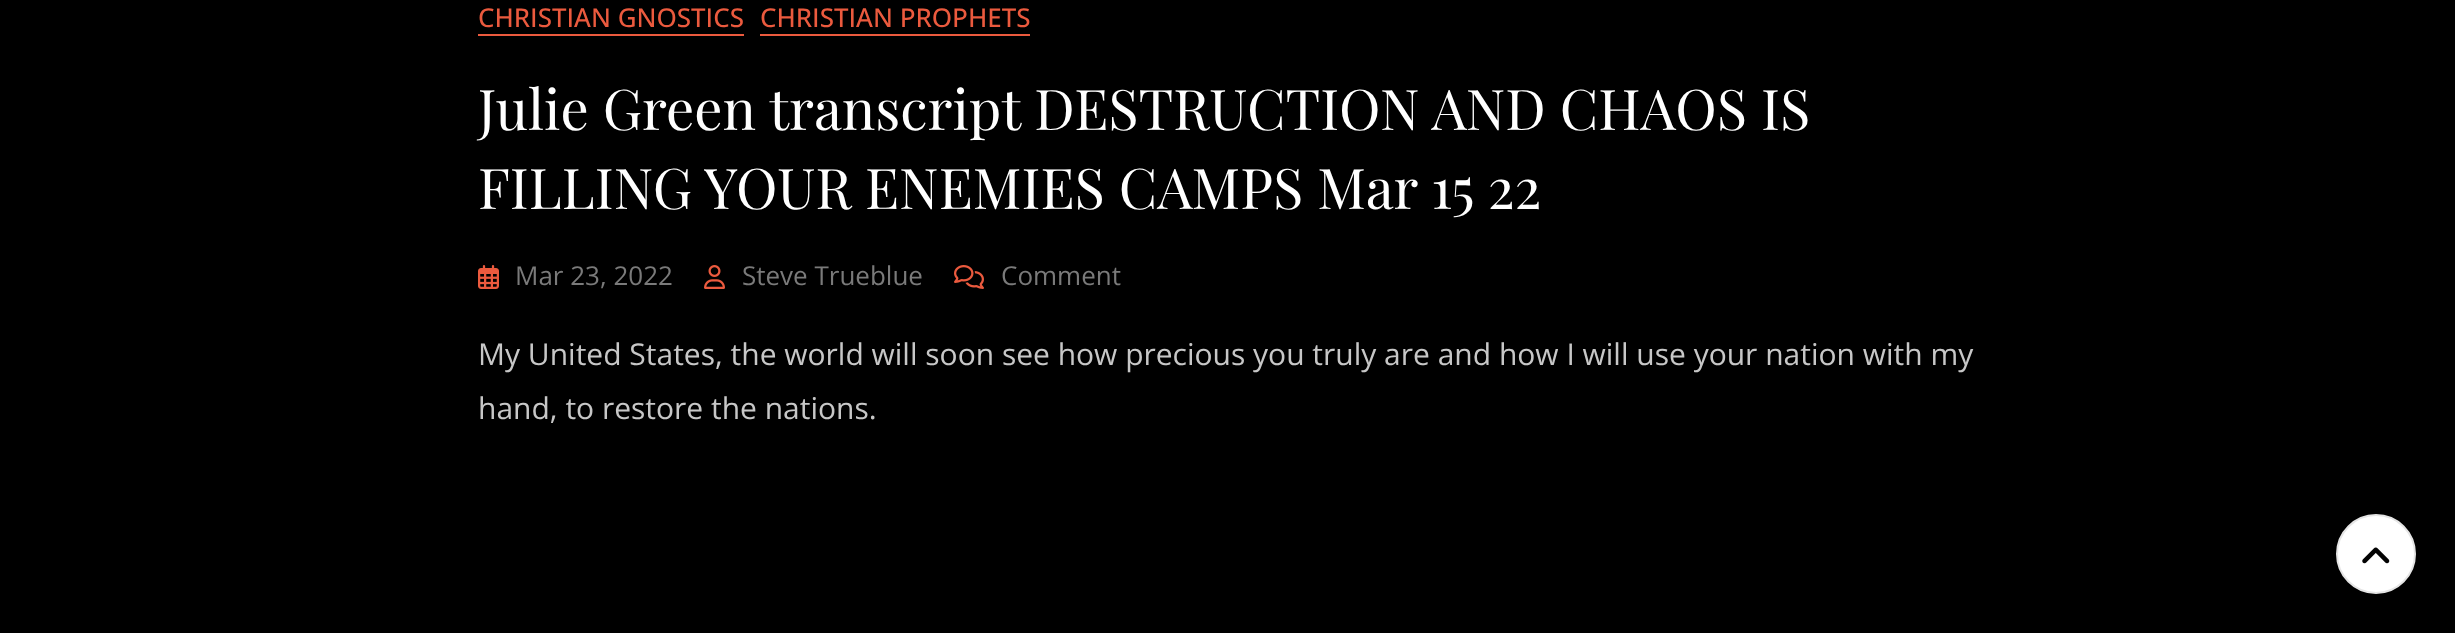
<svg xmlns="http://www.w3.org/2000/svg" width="2455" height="633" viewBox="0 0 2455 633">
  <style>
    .t1 { font: 500 26px Open Sans; fill: #eb5a3e; }
    .t2 { font: 56px Playfair Display; fill: #fff; }
    .t3 { font: 26px Open Sans; fill: #7a7a7a; }
    .t4 { font: 30px Open Sans; fill: #c7c7c7; }
  </style>
  <rect width="100%" height="100%" fill="#000"/>
  <text x="478" y="27" class="t1">CHRISTIAN GNOSTICS</text>
  <rect x="478" y="34" width="266" height="2" fill="#eb5a3e"/>
  <text x="760" y="27" class="t1">CHRISTIAN PROPHETS</text>
  <rect x="760" y="34" width="270" height="2" fill="#eb5a3e"/>
  <text x="478" y="130" class="t2">Julie Green transcript DESTRUCTION AND CHAOS IS</text>
  <text x="478" y="209" class="t2">FILLING YOUR ENEMIES CAMPS Mar 15 22</text>
  <image x="478" y="265" width="21" height="24" href="images/1.png"/>
  <text x="515" y="285" class="t3">Mar 23, 2022</text>
  <image x="704" y="265" width="21" height="24" href="images/2.png"/>
  <text x="742" y="285" class="t3">Steve Trueblue</text>
  <image x="954" y="265" width="30" height="24" href="images/3.png"/>
  <text x="1001" y="285" class="t3">Comment</text>
  <text x="478" y="365" class="t4">My United States, the world will soon see how precious you truly are and how I will use your nation with my</text>
  <text x="478" y="419" class="t4">hand, to restore the nations.</text>
  <circle cx="2376" cy="554" r="39" fill="#fff" stroke="#e5e5e5" stroke-width="2"/>
  <image x="2362" y="547" width="28" height="17" href="images/4.png"/>
</svg>
